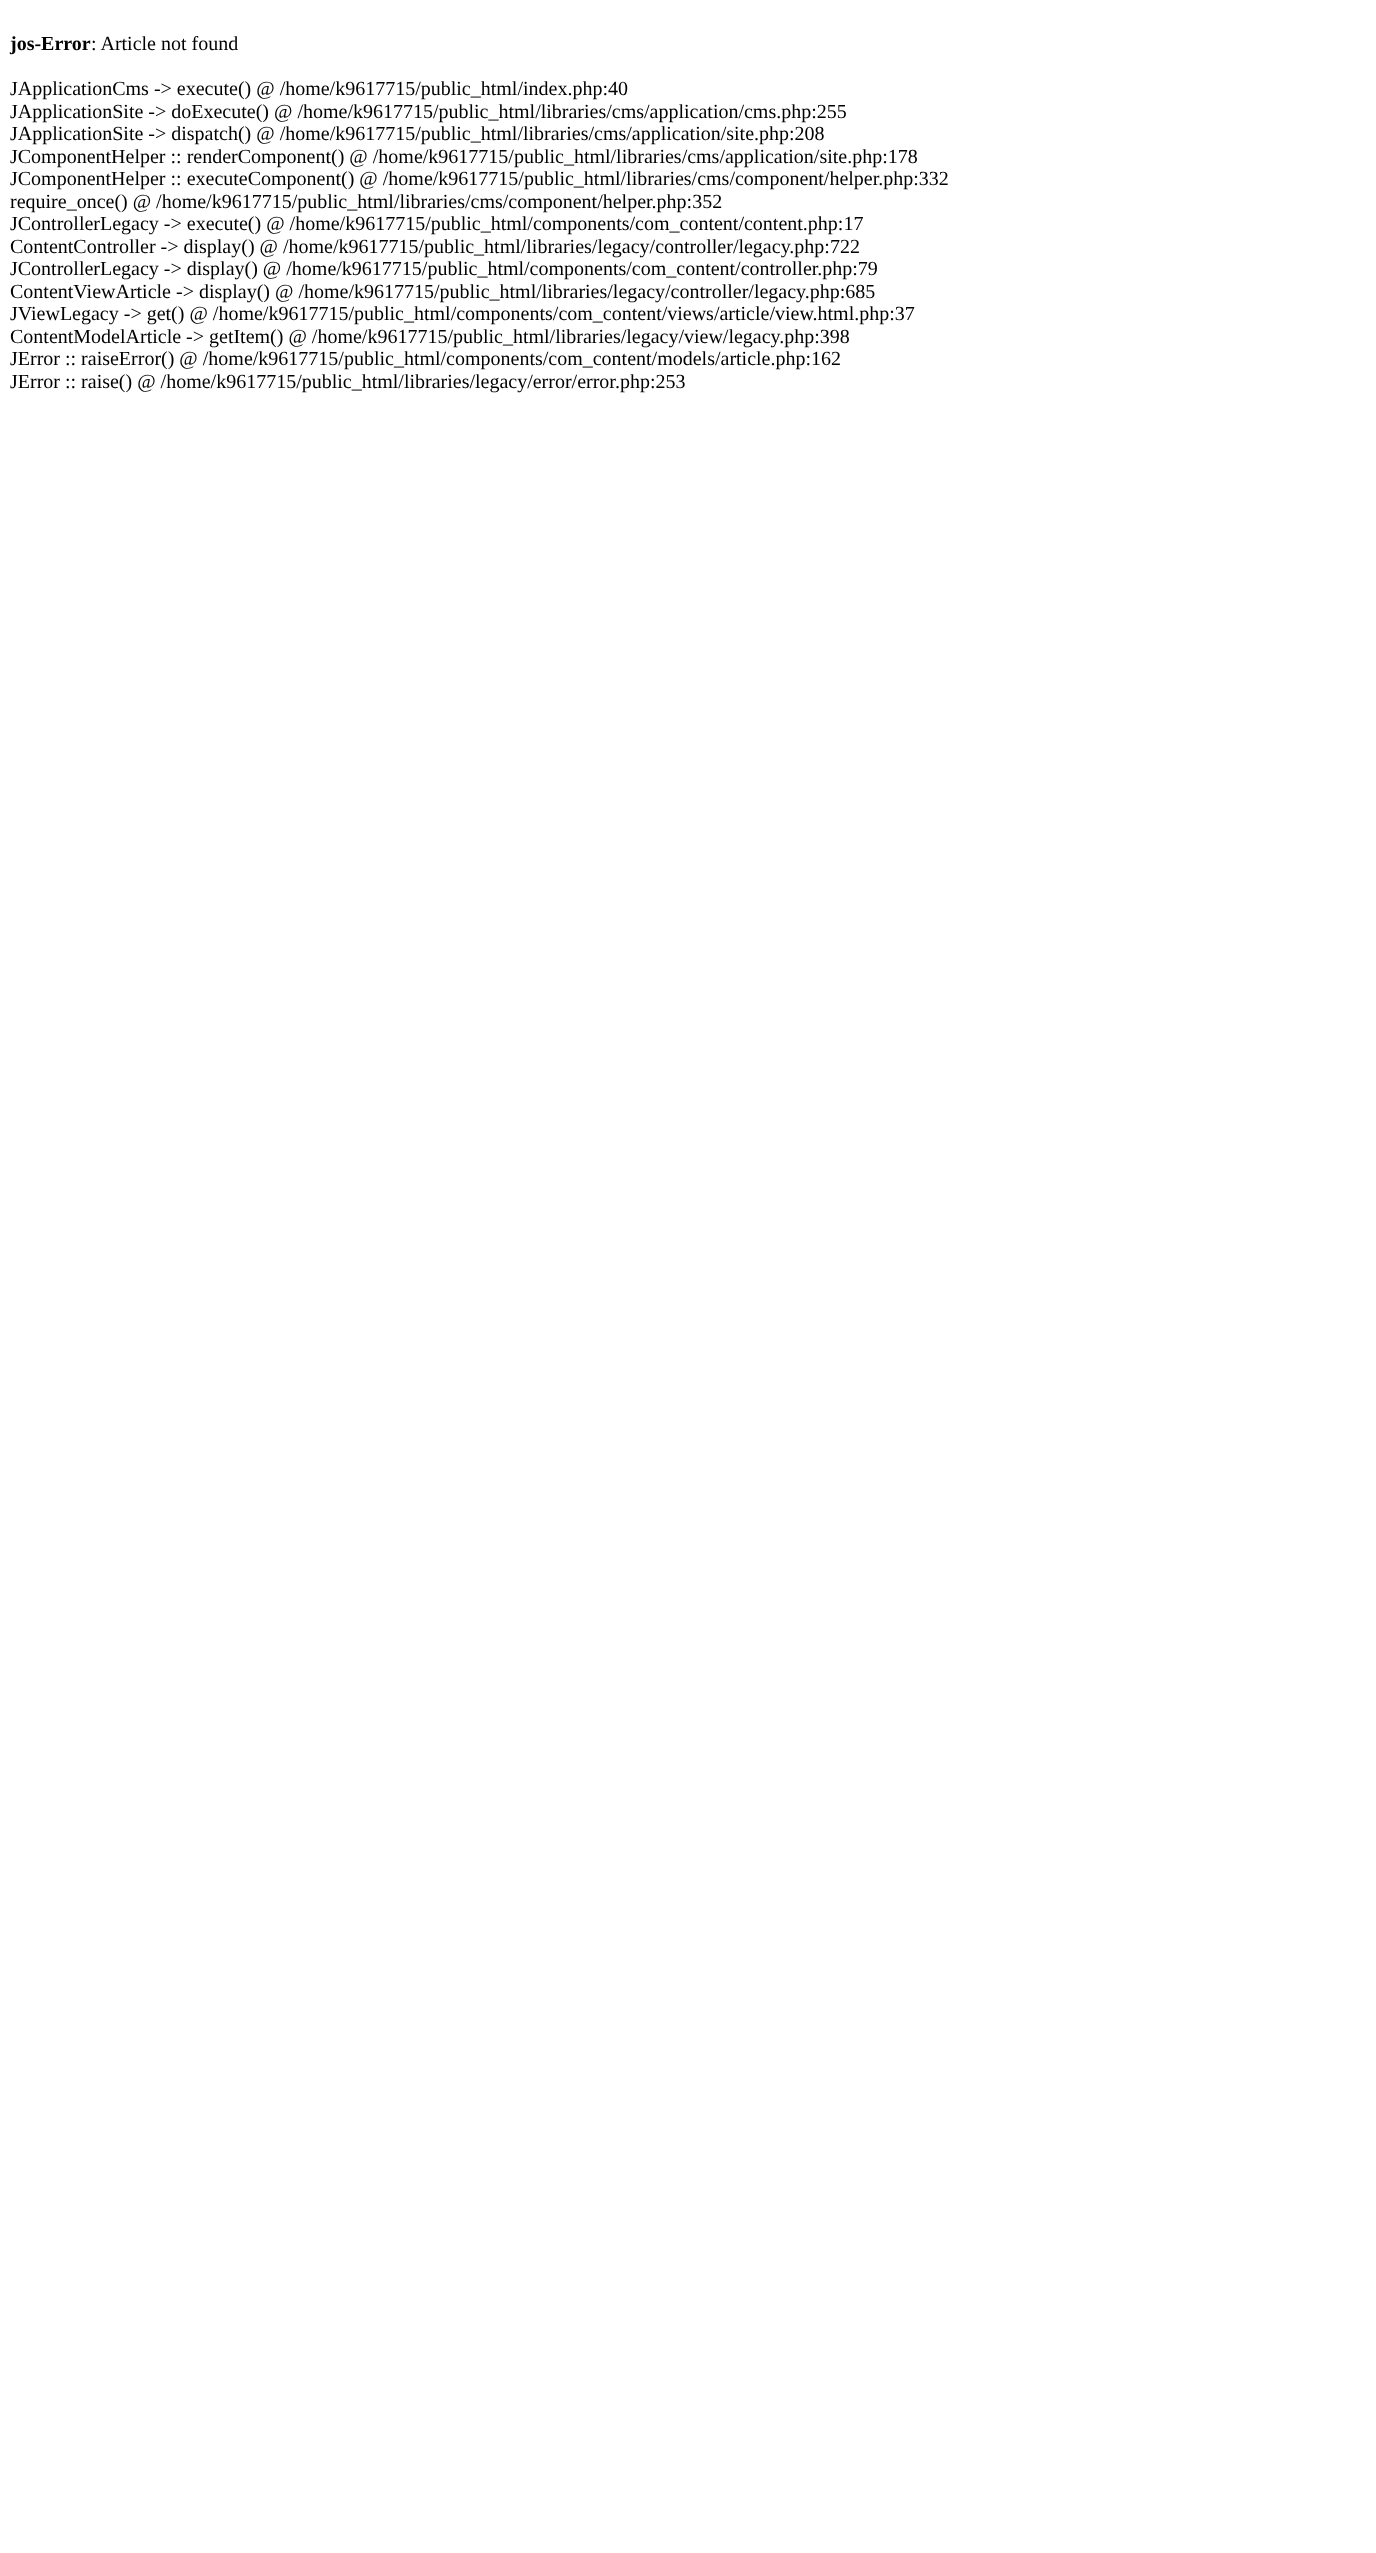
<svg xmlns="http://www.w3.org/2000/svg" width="1376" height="2553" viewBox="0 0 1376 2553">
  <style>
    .t1 { font: bold 20px Liberation Serif; fill: #000; }
    .t2 { font: 20px Liberation Serif; fill: #000; }
  </style>
  <rect width="100%" height="100%" fill="#fff"/>
  <text x="10" y="50" class="t1">jos-Error</text>
  <text x="91" y="50" class="t2">: Article not found</text>
  <text x="10" y="95" class="t2">JApplicationCms -&gt; execute() @ /home/k9617715/public_html/index.php:40</text>
  <text x="10" y="118" class="t2">JApplicationSite -&gt; doExecute() @ /home/k9617715/public_html/libraries/cms/application/cms.php:255</text>
  <text x="10" y="140" class="t2">JApplicationSite -&gt; dispatch() @ /home/k9617715/public_html/libraries/cms/application/site.php:208</text>
  <text x="10" y="163" class="t2">JComponentHelper :: renderComponent() @ /home/k9617715/public_html/libraries/cms/application/site.php:178</text>
  <text x="10" y="185" class="t2">JComponentHelper :: executeComponent() @ /home/k9617715/public_html/libraries/cms/component/helper.php:332</text>
  <text x="10" y="208" class="t2">require_once() @ /home/k9617715/public_html/libraries/cms/component/helper.php:352</text>
  <text x="10" y="230" class="t2">JControllerLegacy -&gt; execute() @ /home/k9617715/public_html/components/com_content/content.php:17</text>
  <text x="10" y="253" class="t2">ContentController -&gt; display() @ /home/k9617715/public_html/libraries/legacy/controller/legacy.php:722</text>
  <text x="10" y="275" class="t2">JControllerLegacy -&gt; display() @ /home/k9617715/public_html/components/com_content/controller.php:79</text>
  <text x="10" y="298" class="t2">ContentViewArticle -&gt; display() @ /home/k9617715/public_html/libraries/legacy/controller/legacy.php:685</text>
  <text x="10" y="320" class="t2">JViewLegacy -&gt; get() @ /home/k9617715/public_html/components/com_content/views/article/view.html.php:37</text>
  <text x="10" y="343" class="t2">ContentModelArticle -&gt; getItem() @ /home/k9617715/public_html/libraries/legacy/view/legacy.php:398</text>
  <text x="10" y="365" class="t2">JError :: raiseError() @ /home/k9617715/public_html/components/com_content/models/article.php:162</text>
  <text x="10" y="388" class="t2">JError :: raise() @ /home/k9617715/public_html/libraries/legacy/error/error.php:253</text>
</svg>
